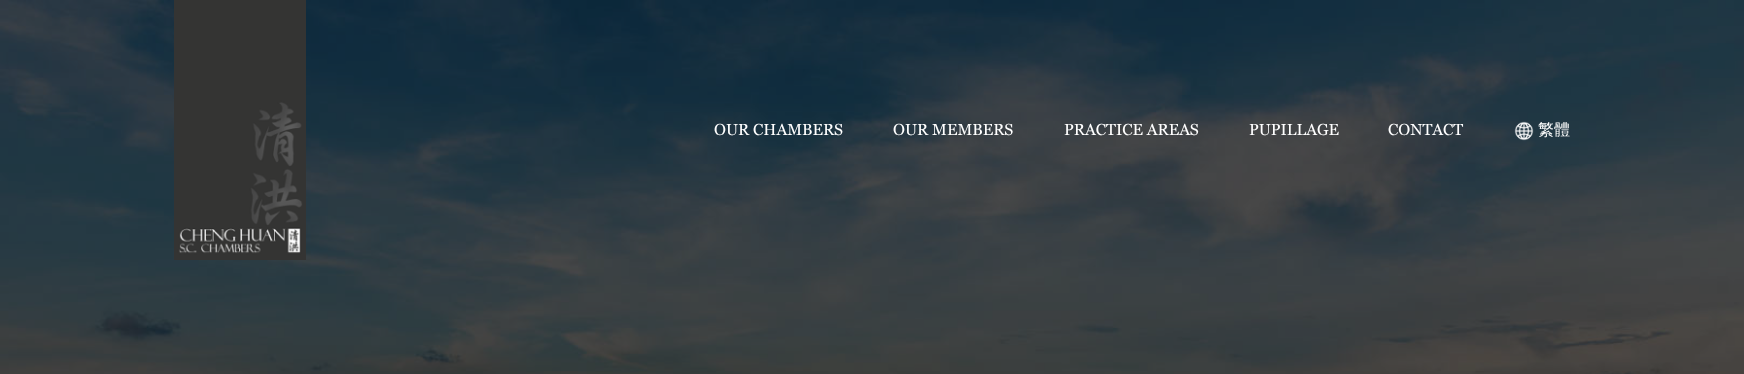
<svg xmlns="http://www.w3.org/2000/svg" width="1744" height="374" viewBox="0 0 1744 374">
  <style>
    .t1 { font: 16px Georgia; fill: #fff; }
    .t2 { font: 500 16px WenQuanYi Zen Hei; fill: #fff; }
  </style>
  <rect width="100%" height="100%" fill="#fff"/>
  <image x="0" y="0" width="1744" height="374" href="images/1.png"/>
  <image x="174" y="0" width="132" height="260" href="images/2.png"/>
  <text x="714" y="135" class="t1">OUR CHAMBERS</text>
  <text x="893" y="135" class="t1">OUR MEMBERS</text>
  <text x="1064" y="135" class="t1">PRACTICE AREAS</text>
  <text x="1249" y="135" class="t1">PUPILLAGE</text>
  <text x="1388" y="135" class="t1">CONTACT</text>
  <image x="1514" y="121" width="20" height="20" href="images/3.png"/>
  <text x="1538" y="135" class="t2">繁體</text>
</svg>
